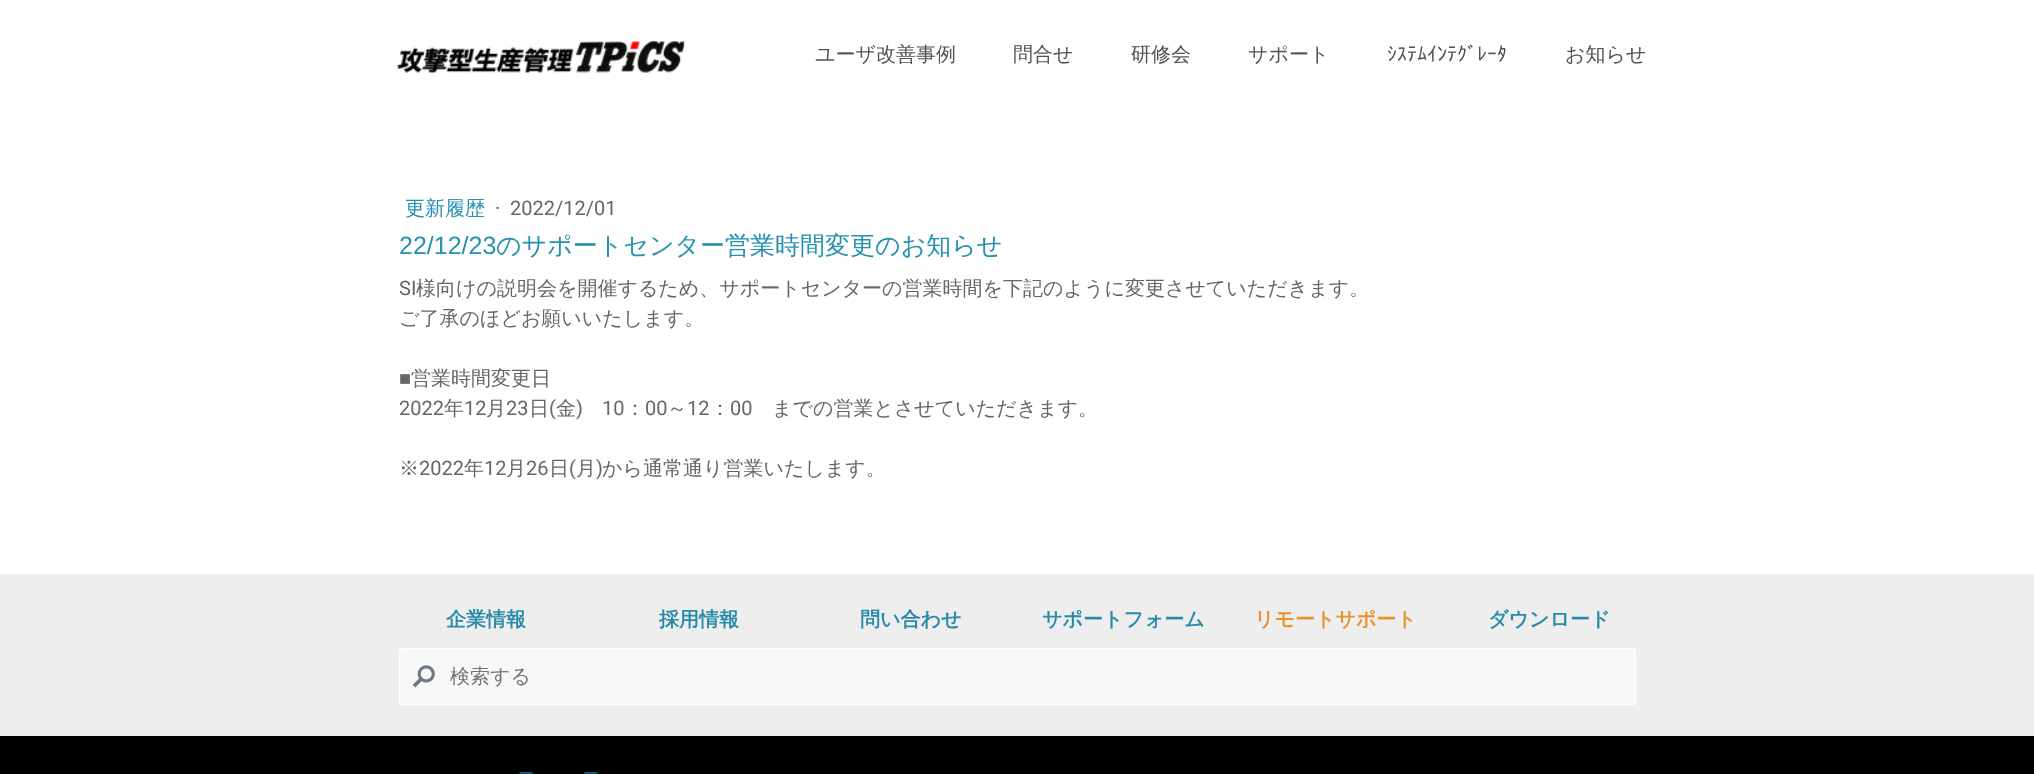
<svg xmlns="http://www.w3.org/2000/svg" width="2034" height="774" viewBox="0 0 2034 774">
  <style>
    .t1 { font: 500 20px WenQuanYi Zen Hei; fill: #525252; }
    .t2 { font: 20px IPAPGothic; fill: #525252; }
    .t3 { font: 500 20px WenQuanYi Zen Hei; fill: #2591b1; }
    .t4 { font: 20px Roboto; fill: #666; }
    .t5 { font: 25px Liberation Sans; fill: #2591b1; }
    .t6 { font: 500 25px WenQuanYi Zen Hei; fill: #2591b1; }
    .t7 { font: 500 20px WenQuanYi Zen Hei; fill: #666; }
    .t8 { font: 20px Liberation Sans; fill: #666; }
    .t9 { font: bold 20px WenQuanYi Zen Hei; fill: #298ba8; }
    .t10 { font: bold 20px WenQuanYi Zen Hei; fill: #e9932b; }
    .t11 { font: 500 20px WenQuanYi Zen Hei; fill: #757575; }
    .t12 { font: 500 16px WenQuanYi Zen Hei; fill: #1a667c; }
  </style>
  <rect width="100%" height="100%" fill="#fff"/>
  <image x="397" y="40" width="288" height="33" href="images/1.png"/>
  <text x="815" y="61" class="t1">ユーザ改善事例</text>
  <text x="1013" y="61" class="t1">問合せ</text>
  <text x="1131" y="61" class="t1">研修会</text>
  <text x="1248" y="61" class="t1">サポート</text>
  <text x="1387" y="61" class="t2">ｼｽﾃﾑｲﾝﾃｸﾞﾚｰﾀ</text>
  <text x="1565" y="61" class="t1">お知らせ</text>
  <text x="405" y="215" class="t3">更新履歴</text>
  <text x="495" y="215" class="t4">·</text>
  <text x="510" y="215" class="t4">2022/12/01</text>
  <text x="399" y="254" class="t5">22/12/23</text>
  <text x="496" y="254" class="t6">のサポートセンター営業時間変更のお知らせ</text>
  <text x="399" y="295" class="t4">SI</text>
  <text x="416" y="295" class="t7">様向けの説明会を開催するため、サポートセンターの営業時間を下記のように変更させていただきます。</text>
  <text x="399" y="325" class="t7">ご了承のほどお願いいたします。</text>
  <text x="399" y="385" class="t8">■</text>
  <text x="411" y="385" class="t7">営業時間変更日</text>
  <text x="399" y="415" class="t4">2022</text>
  <text x="444" y="415" class="t7">年</text>
  <text x="464" y="415" class="t4">12</text>
  <text x="486" y="415" class="t7">月</text>
  <text x="506" y="415" class="t4">23</text>
  <text x="529" y="415" class="t7">日</text>
  <text x="549" y="415" class="t4">(</text>
  <text x="556" y="415" class="t7">金</text>
  <text x="576" y="415" class="t4">)</text>
  <text x="602" y="415" class="t4">10</text>
  <text x="625" y="415" class="t7">：</text>
  <text x="645" y="415" class="t4">00</text>
  <text x="667" y="415" class="t7">～</text>
  <text x="687" y="415" class="t4">12</text>
  <text x="710" y="415" class="t7">：</text>
  <text x="730" y="415" class="t4">00</text>
  <text x="772" y="415" class="t7">までの営業とさせていただきます。</text>
  <text x="399" y="475" class="t7">※</text>
  <text x="419" y="475" class="t4">2022</text>
  <text x="464" y="475" class="t7">年</text>
  <text x="484" y="475" class="t4">12</text>
  <text x="506" y="475" class="t7">月</text>
  <text x="526" y="475" class="t4">26</text>
  <text x="549" y="475" class="t7">日</text>
  <text x="569" y="475" class="t4">(</text>
  <text x="576" y="475" class="t7">月</text>
  <text x="596" y="475" class="t4">)</text>
  <text x="602" y="475" class="t7">から通常通り営業いたします。</text>
  <rect x="0" y="574" width="2034" height="162" fill="#eee"/>
  <text x="446" y="626" class="t9">企業情報</text>
  <text x="659" y="626" class="t9">採用情報</text>
  <text x="860" y="626" class="t9">問い合わせ</text>
  <text x="1042" y="626" class="t9">サポートフォーム</text>
  <text x="1254" y="626" class="t10">リモートサポート</text>
  <text x="1488" y="626" class="t9">ダウンロード</text>
  <rect x="399.5" y="648.5" width="1236" height="56" rx="2" fill="#f7f8f8" stroke="#fff"/>
  <image x="412" y="665" width="23" height="23" href="images/2.png"/>
  <text x="450" y="683" class="t11">検索する</text>
  <rect x="0" y="736" width="2034" height="38" fill="#000"/>
  <text x="518" y="779" class="t12">ー</text>
  <text x="583" y="779" class="t12">ー</text>
</svg>
